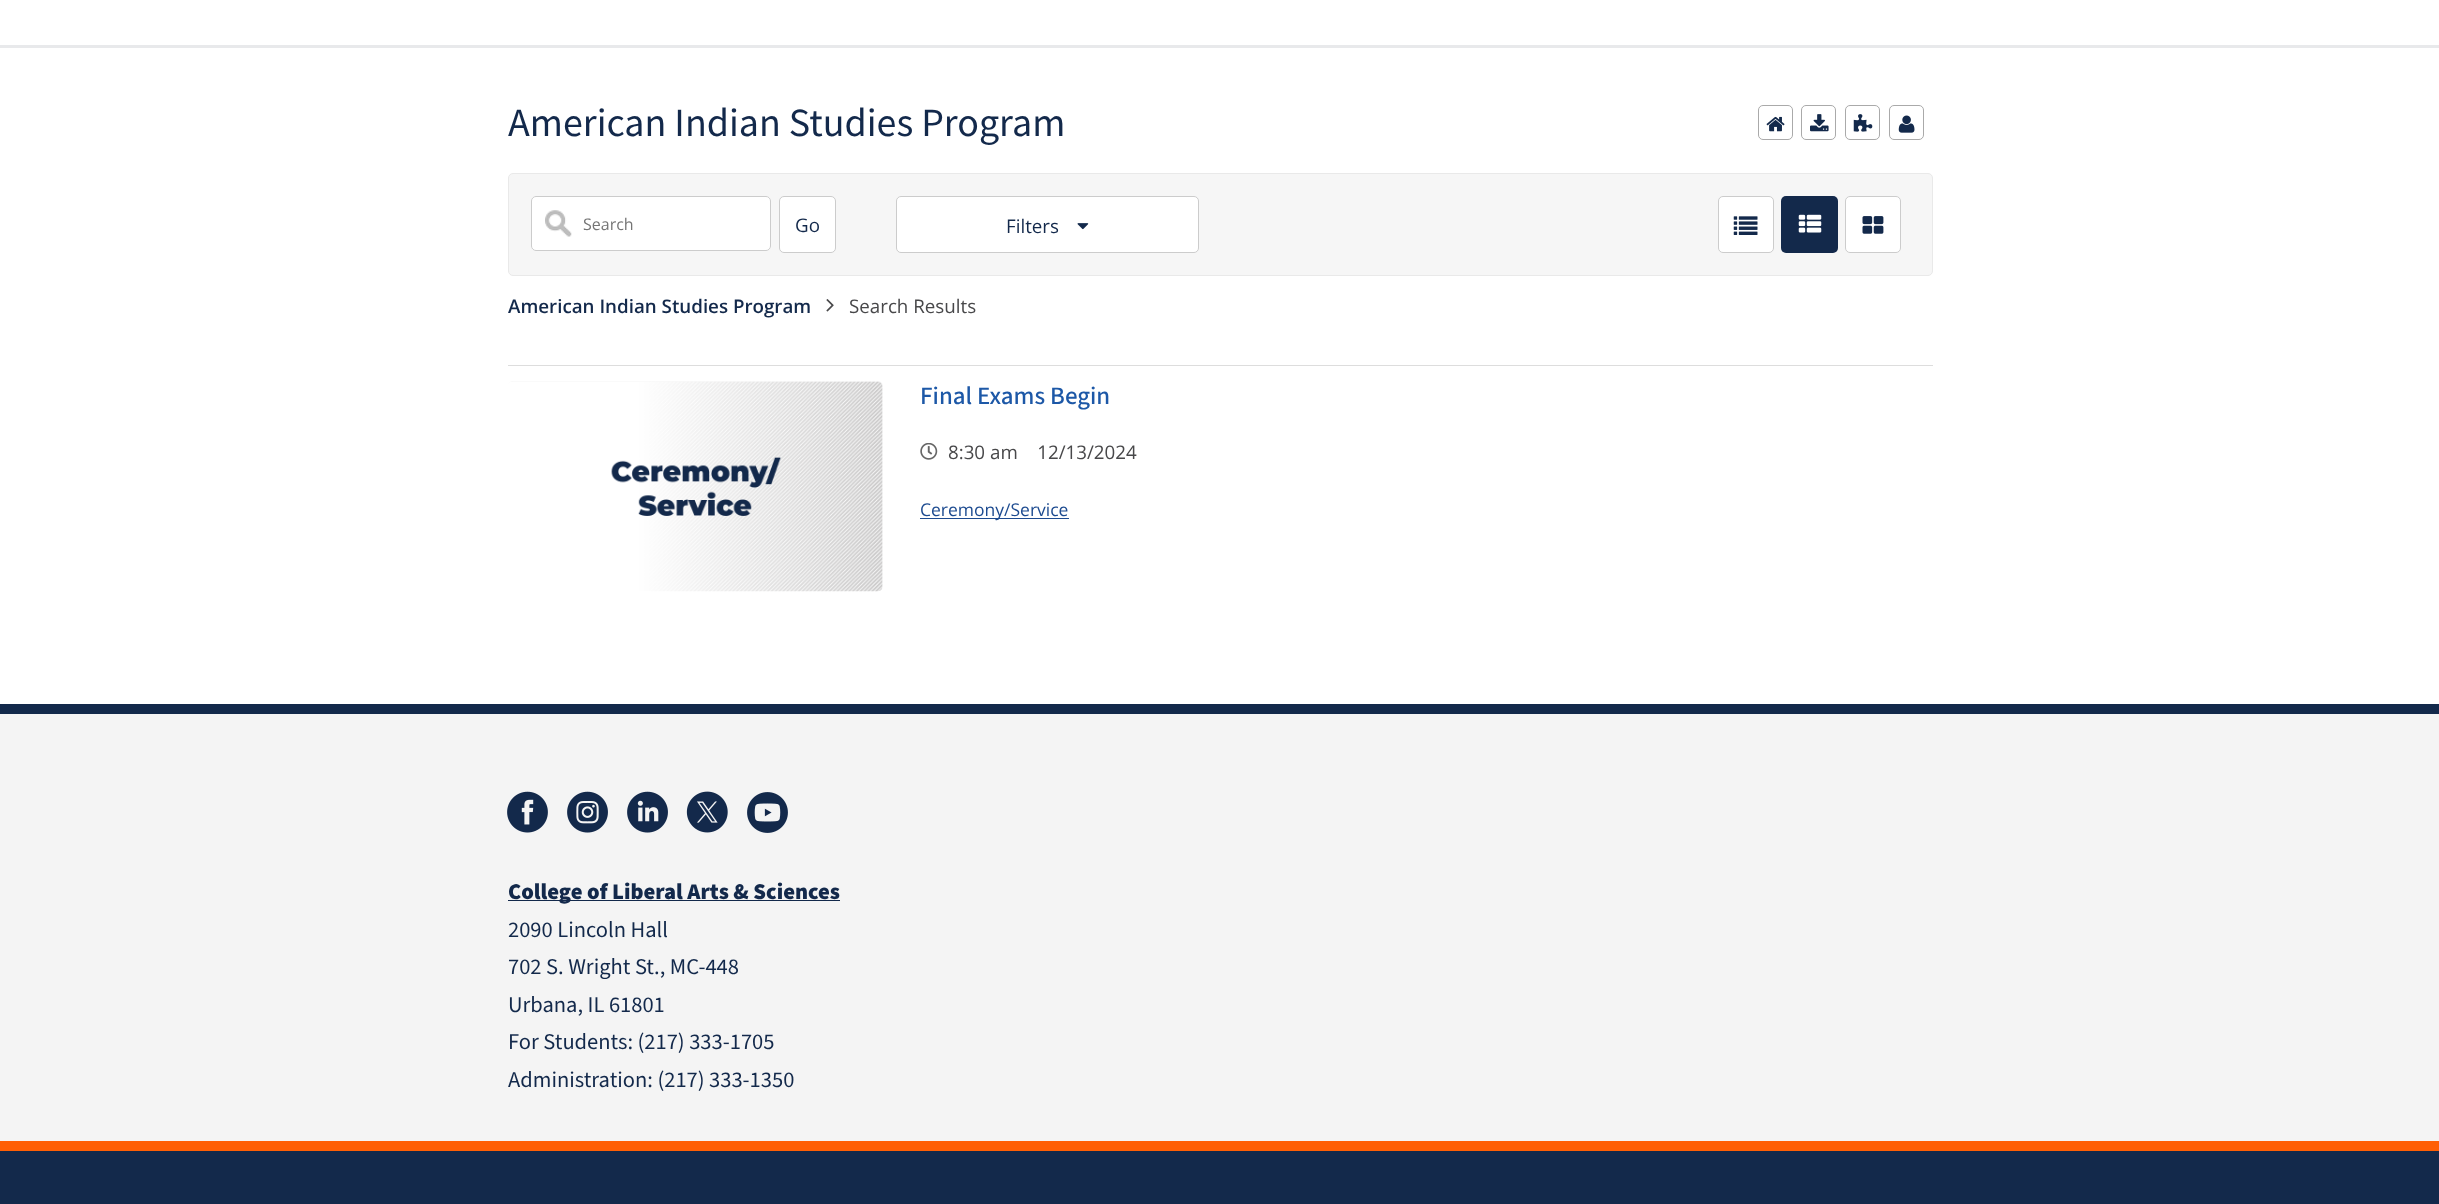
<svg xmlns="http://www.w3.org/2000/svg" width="2439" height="1204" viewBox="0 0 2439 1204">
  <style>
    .t1 { font: 40px Source Sans Pro; fill: #13294b; }
    .t2 { font: 16px Open Sans; fill: #757575; }
    .t3 { font: 18.75px Open Sans; fill: #13294b; }
    .t4 { font: 600 18.75px Open Sans; fill: #13294b; }
    .t5 { font: 18.75px Open Sans; fill: #48484a; }
    .t6 { font: 500 25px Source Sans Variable; fill: #1d58a7; }
    .t7 { font: 17.5px Open Sans; fill: #1d4b90; }
    .t8 { font: 900 22.5px Source Sans Variable; fill: #13294b; }
    .t9 { font: 22.5px Source Sans Variable; fill: #13294b; }
  </style>
  <rect width="100%" height="100%" fill="#fff"/>
  <rect x="0" y="45" width="2439" height="3" fill="#e8e9eb"/>
  <text x="508" y="136" class="t1">American Indian Studies Program</text>
  <rect x="1758.5" y="105.5" width="34" height="34" rx="4.5" fill="none" stroke="#aaa"/>
  <image x="1766" y="116" width="19" height="16" href="images/1.png"/>
  <rect x="1801.5" y="105.5" width="34" height="34" rx="4.5" fill="none" stroke="#aaa"/>
  <image x="1810" y="114" width="19" height="18" href="images/2.png"/>
  <rect x="1845.5" y="105.5" width="34" height="34" rx="4.5" fill="none" stroke="#aaa"/>
  <image x="1853" y="114" width="20" height="18" href="images/3.png"/>
  <rect x="1889.5" y="105.5" width="34" height="34" rx="4.5" fill="none" stroke="#aaa"/>
  <image x="1898" y="115" width="17" height="18" href="images/4.png"/>
  <rect x="508.5" y="173.5" width="1424" height="102" rx="4.5" fill="#f6f6f6" stroke="#e9e9e9"/>
  <rect x="531" y="196" width="240" height="55" rx="5" fill="#fff"/>
  <image x="545" y="210" width="27" height="27" href="images/5.png"/>
  <rect x="531.5" y="196.5" width="239" height="54" rx="4.5" fill="none" stroke="#ccc"/>
  <text x="583" y="230" class="t2">Search</text>
  <rect x="779.5" y="196.5" width="56" height="56" rx="4.5" fill="#fff" stroke="#ccc"/>
  <text x="795" y="232" class="t3">Go</text>
  <rect x="896.5" y="196.5" width="302" height="56" rx="4.5" fill="#fff" stroke="#ccc"/>
  <text x="1006" y="233" class="t3">Filters</text>
  <image x="1077" y="223" width="12" height="7" href="images/6.png"/>
  <rect x="1718.5" y="196.5" width="55" height="56" rx="4.5" fill="#fff" stroke="#ccc"/>
  <image x="1733" y="216" width="25" height="19" href="images/7.png"/>
  <rect x="1781" y="196" width="57" height="57" rx="5" fill="#13294b"/>
  <image x="1798" y="214" width="24" height="19" href="images/8.png"/>
  <rect x="1845.5" y="196.5" width="55" height="56" rx="4.5" fill="#fff" stroke="#ccc"/>
  <image x="1862" y="216" width="22" height="18" href="images/9.png"/>
  <text x="508" y="313" class="t4">American Indian Studies Program</text>
  <image x="826" y="299" width="8" height="13" href="images/10.png"/>
  <text x="849" y="313" class="t5">Search Results</text>
  <rect x="508" y="365" width="1425" height="1" fill="#ddd"/>
  <rect x="508" y="381" width="375" height="210" rx="5" fill="#f8f8f8"/>
  <image x="508" y="381" width="375" height="211" href="images/11.png"/>
  <text x="920" y="404" class="t6">Final Exams Begin</text>
  <image x="920" y="443" width="18" height="17" href="images/12.png"/>
  <text x="948" y="459" class="t5" xml:space="preserve">8:30 am    12/13/2024</text>
  <rect x="920" y="518" width="149" height="1" fill="#1d4b90"/>
  <text x="920" y="516" class="t7">Ceremony/Service</text>
  <rect x="0" y="714" width="2439" height="427" fill="#f4f4f4"/>
  <rect x="0" y="704" width="2439" height="10" fill="#13294b"/>
  <image x="507" y="791" width="41" height="42" href="images/13.png"/>
  <image x="567" y="791" width="41" height="42" href="images/14.png"/>
  <image x="627" y="791" width="41" height="42" href="images/15.png"/>
  <image x="686" y="791" width="42" height="42" href="images/16.png"/>
  <image x="747" y="792" width="41" height="41" href="images/17.png"/>
  <rect x="508" y="900" width="332" height="1" fill="#13294b"/>
  <text x="508" y="899" class="t8">College of Liberal Arts &amp; Sciences</text>
  <text x="508" y="937" class="t9">2090 Lincoln Hall</text>
  <text x="508" y="974" class="t9">702 S. Wright St., MC-448</text>
  <text x="508" y="1012" class="t9">Urbana, IL 61801</text>
  <text x="508" y="1049" class="t9">For Students: (217) 333-1705</text>
  <text x="508" y="1087" class="t9">Administration: (217) 333-1350</text>
  <rect x="0" y="1151" width="2439" height="53" fill="#13294b"/>
  <rect x="0" y="1141" width="2439" height="10" fill="#ff5f05"/>
</svg>
